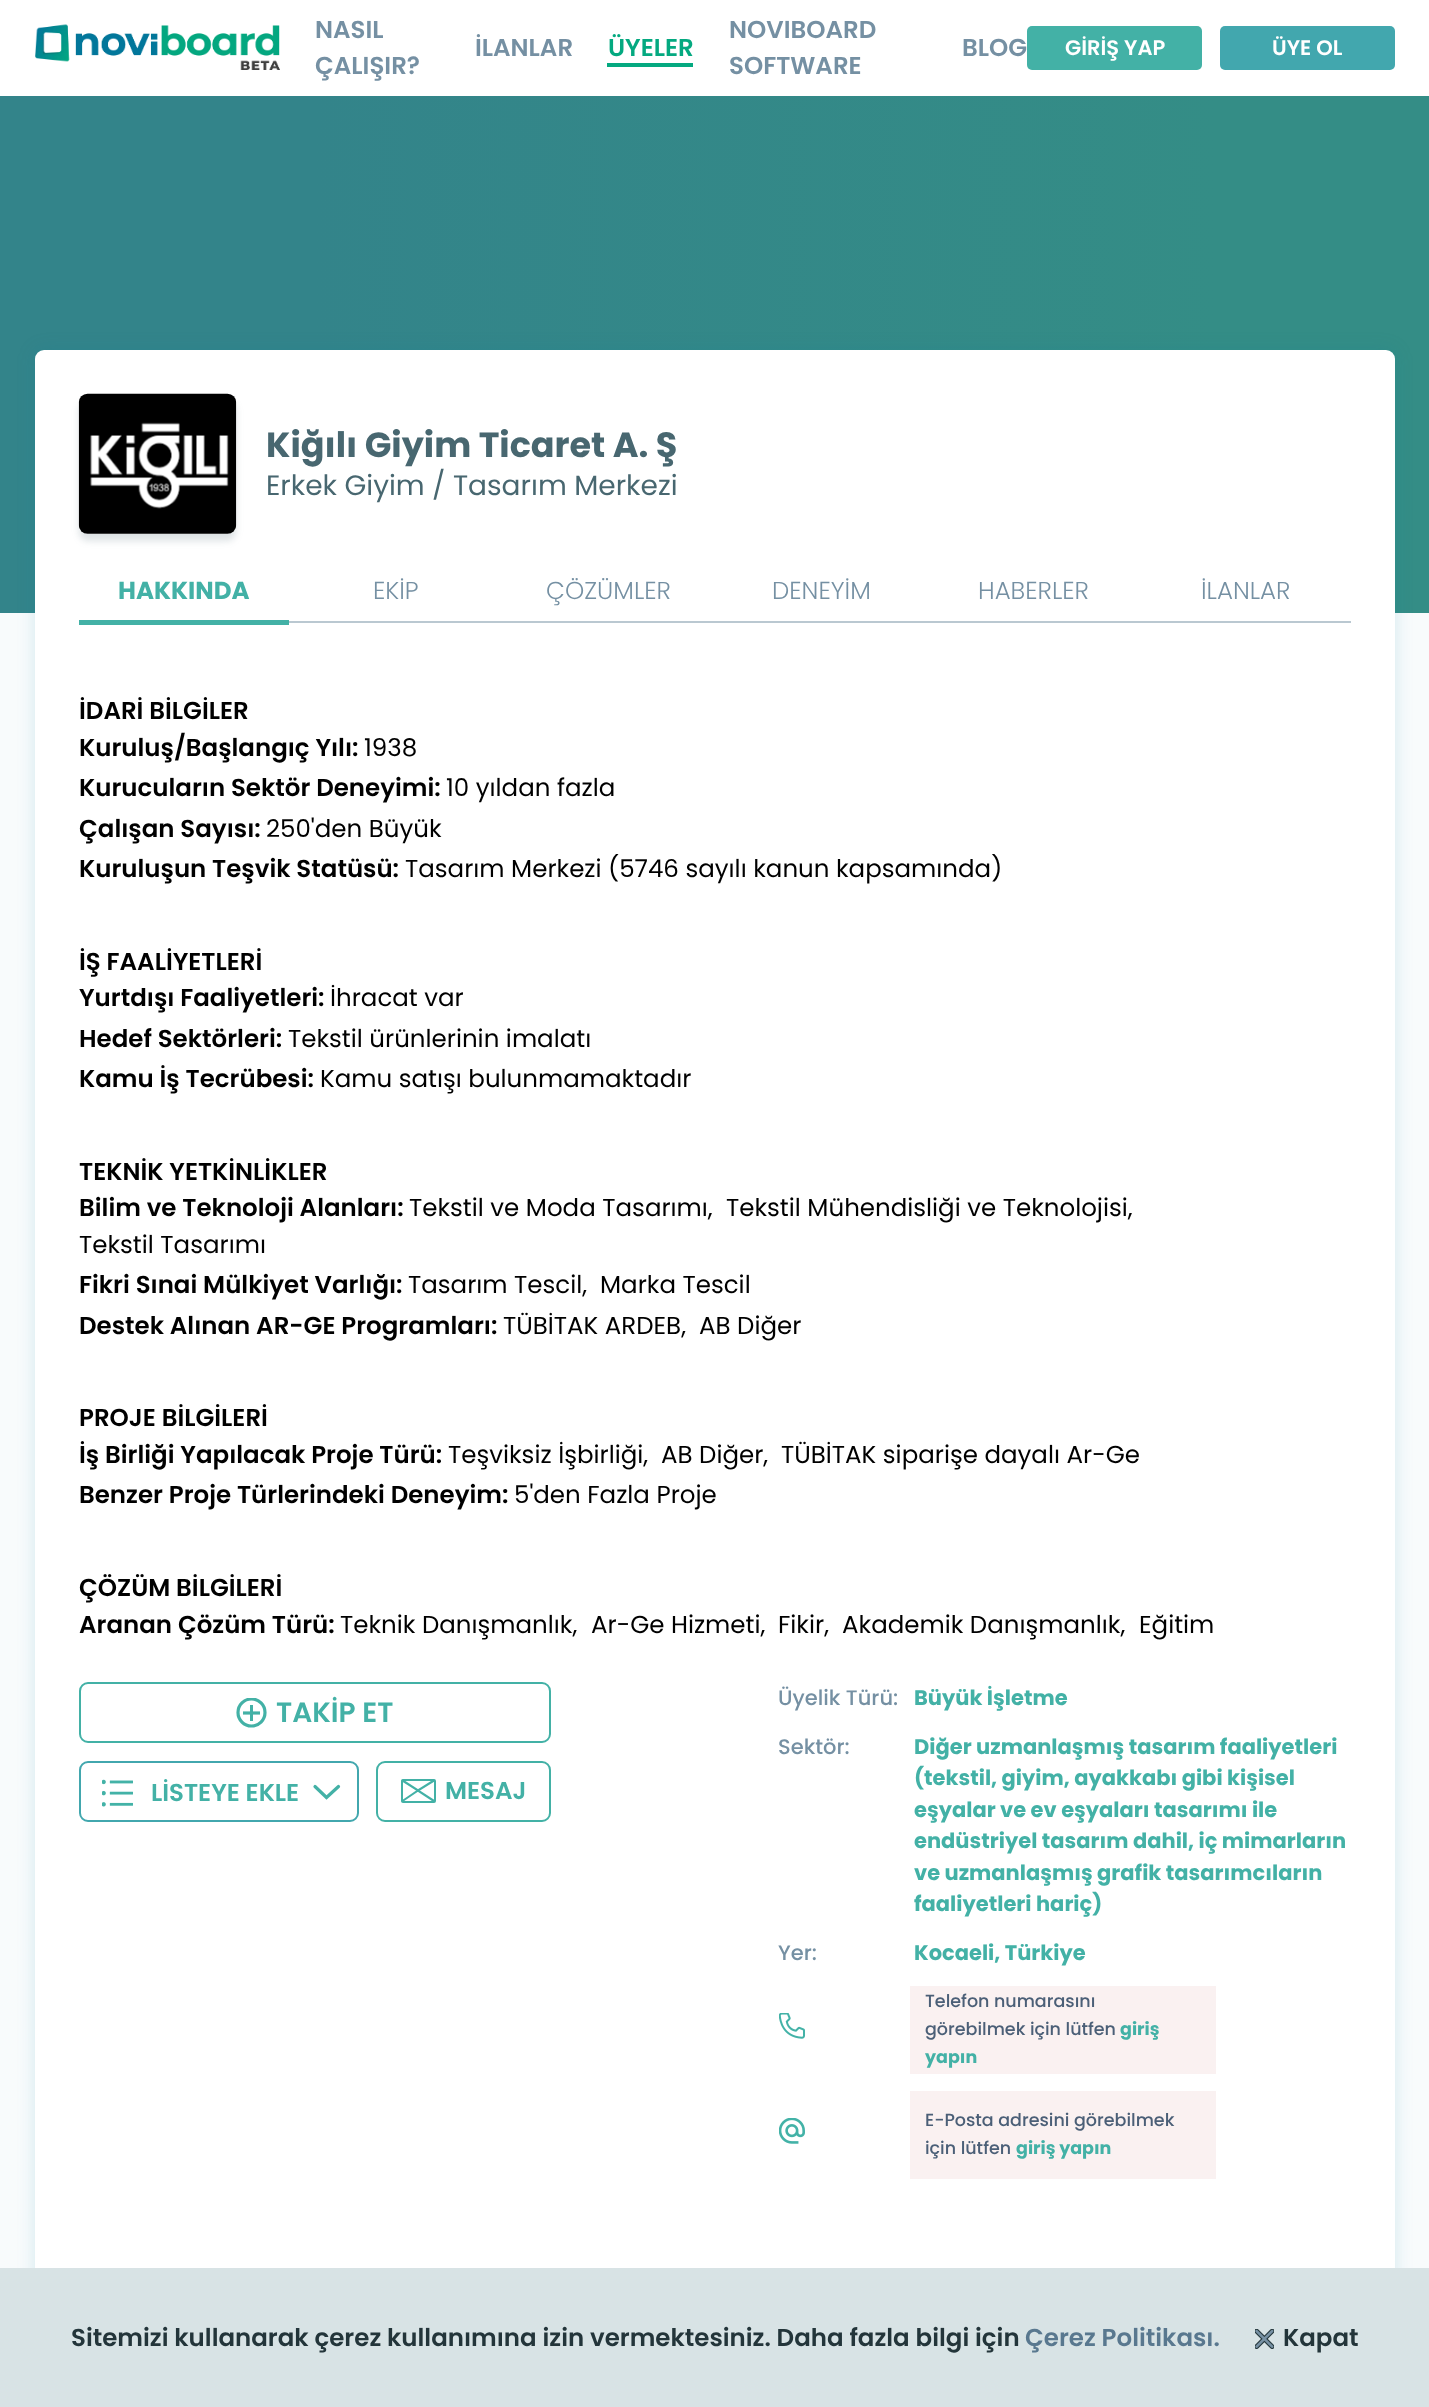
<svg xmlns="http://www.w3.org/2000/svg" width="1429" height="2407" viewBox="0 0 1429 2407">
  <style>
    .t1 { font: 600 24.5px Poppins; fill: #7590a3; }
    .t2 { font: 600 24.5px Poppins; fill: #04a980; }
    .t3 { font: 600 21px Poppins; fill: #fff; }
    .t4 { font: bold 35px Poppins; fill: #486770; }
    .t5 { font: 28px Poppins; fill: #486770; }
    .t6 { font: bold 24.5px Poppins; fill: #43b1a6; }
    .t7 { font: 300 24.5px Poppins; fill: #7590a3; }
    .t8 { font: 600 24.5px Poppins; fill: #000; }
    .t9 { font: 24.5px Poppins; fill: #000; }
    .t10 { font: 600 28px Poppins; fill: #43b1a6; }
    .t11 { font: 600 24.5px Poppins; fill: #43b1a6; }
    .t12 { font: 500 21px Poppins; fill: #7590a3; }
    .t13 { font: bold 21px Poppins; fill: #43b1a6; }
    .t14 { font: 500 17.5px Poppins; fill: #4b5f77; }
    .t15 { font: bold 17.5px Poppins; fill: #43b1a6; }
    .t16 { font: 600 24.5px Poppins; fill: #23353a; }
    .t17 { font: 600 24.5px Poppins; fill: #59788f; }
  </style>
  <defs>
    <linearGradient id="g1" gradientUnits="userSpaceOnUse" x1="-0.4" y1="307" x2="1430" y2="305"><stop offset="0.22" stop-color="#33848a"/><stop offset="0.85" stop-color="#348d86"/></linearGradient>
    <clipPath id="clip1"><rect x="236" y="1698" width="32" height="31"/></clipPath>
  </defs>
  <rect width="100%" height="100%" fill="#f8fbfc"/>
  <rect x="0" y="0" width="1429" height="96" fill="#fff"/>
  <image x="35" y="24" width="245" height="46" href="images/1.png"/>
  <text x="315" y="38" class="t1">NASIL</text>
  <text x="315" y="74" class="t1">ÇALIŞIR?</text>
  <text x="475" y="56" class="t1">İLANLAR</text>
  <text x="608" y="56" class="t2">ÜYELER</text>
  <rect x="607" y="63" width="86" height="4" fill="#04a980"/>
  <text x="729" y="38" class="t1">NOVIBOARD</text>
  <text x="729" y="74" class="t1">SOFTWARE</text>
  <text x="962" y="56" class="t1">BLOG</text>
  <rect x="1027" y="26" width="175" height="44" rx="5" fill="#43b1a6"/>
  <text x="1065" y="55" class="t3">GİRİŞ YAP</text>
  <rect x="1220" y="26" width="175" height="44" rx="5" fill="#42a7ae"/>
  <text x="1272" y="55" class="t3">ÜYE OL</text>
  <rect x="0" y="96" width="1429" height="517" fill="url(#g1)"/>
  <rect x="35" y="350" width="1360" height="1986" rx="9" fill="#02789c26" filter="blur(9px)"/>
  <rect x="35" y="350" width="1360" height="1986" rx="9" fill="#fff"/>
  <rect x="79" y="401" width="157" height="140" rx="9" fill="#4866702e" filter="blur(3.5px)"/>
  <rect x="79" y="394" width="157" height="140" rx="9" fill="#fff"/>
  <image x="78" y="393" width="159" height="141" href="images/2.png"/>
  <text x="266" y="457" class="t4">Kiğılı Giyim Ticaret A. Ş</text>
  <text x="266" y="495" class="t5">Erkek Giyim / Tasarım Merkezi</text>
  <rect x="289" y="621" width="1062" height="2" fill="#bac8d1"/>
  <text x="118" y="599" class="t6">HAKKINDA</text>
  <rect x="79" y="620" width="210" height="5" fill="#43b1a6"/>
  <text x="373" y="599" class="t7">EKİP</text>
  <text x="546" y="599" class="t7">ÇÖZÜMLER</text>
  <text x="772" y="599" class="t7">DENEYİM</text>
  <text x="978" y="599" class="t7">HABERLER</text>
  <text x="1201" y="599" class="t7">İLANLAR</text>
  <text x="79" y="719" class="t8">İDARİ BİLGİLER</text>
  <text x="79" y="756" class="t8">Kuruluş/Başlangıç Yılı:</text>
  <text x="364" y="756" class="t9">1938</text>
  <text x="79" y="796" class="t8">Kurucuların Sektör Deneyimi:</text>
  <text x="446" y="796" class="t9">10 yıldan fazla</text>
  <text x="79" y="837" class="t8">Çalışan Sayısı:</text>
  <text x="266" y="837" class="t9">250'den Büyük</text>
  <text x="79" y="877" class="t8">Kuruluşun Teşvik Statüsü:</text>
  <text x="405" y="877" class="t9">Tasarım Merkezi (5746 sayılı kanun kapsamında)</text>
  <text x="79" y="970" class="t8">İŞ FAALİYETLERİ</text>
  <text x="79" y="1006" class="t8">Yurtdışı Faaliyetleri:</text>
  <text x="330" y="1006" class="t9">İhracat var</text>
  <text x="79" y="1047" class="t8">Hedef Sektörleri:</text>
  <text x="288" y="1047" class="t9">Tekstil ürünlerinin imalatı</text>
  <text x="79" y="1087" class="t8">Kamu İş Tecrübesi:</text>
  <text x="320" y="1087" class="t9">Kamu satışı bulunmamaktadır</text>
  <text x="79" y="1180" class="t8">TEKNİK YETKİNLİKLER</text>
  <text x="79" y="1216" class="t8">Bilim ve Teknoloji Alanları:</text>
  <text x="409" y="1216" class="t9">Tekstil ve Moda Tasarımı,</text>
  <text x="726" y="1216" class="t9">Tekstil Mühendisliği ve Teknolojisi,</text>
  <text x="79" y="1253" class="t9">Tekstil Tasarımı</text>
  <text x="79" y="1293" class="t8">Fikri Sınai Mülkiyet Varlığı:</text>
  <text x="408" y="1293" class="t9">Tasarım Tescil,</text>
  <text x="600" y="1293" class="t9">Marka Tescil</text>
  <text x="79" y="1334" class="t8">Destek Alınan AR-GE Programları:</text>
  <text x="503" y="1334" class="t9">TÜBİTAK ARDEB,</text>
  <text x="699" y="1334" class="t9">AB Diğer</text>
  <text x="79" y="1426" class="t8">PROJE BİLGİLERİ</text>
  <text x="79" y="1463" class="t8">İş Birliği Yapılacak Proje Türü:</text>
  <text x="448" y="1463" class="t9">Teşviksiz İşbirliği,</text>
  <text x="661" y="1463" class="t9">AB Diğer,</text>
  <text x="781" y="1463" class="t9">TÜBİTAK siparişe dayalı Ar-Ge</text>
  <text x="79" y="1503" class="t8">Benzer Proje Türlerindeki Deneyim:</text>
  <text x="514" y="1503" class="t9">5'den Fazla Proje</text>
  <text x="79" y="1596" class="t8">ÇÖZÜM BİLGİLERİ</text>
  <text x="79" y="1633" class="t8">Aranan Çözüm Türü:</text>
  <text x="340" y="1633" class="t9">Teknik Danışmanlık,</text>
  <text x="591" y="1633" class="t9">Ar-Ge Hizmeti,</text>
  <text x="778" y="1633" class="t9">Fikir,</text>
  <text x="842" y="1633" class="t9">Akademik Danışmanlık,</text>
  <text x="1139" y="1633" class="t9">Eğitim</text>
  <rect x="80" y="1683" width="470" height="59" rx="8" fill="none" stroke="#43b1a6" stroke-width="2"/>
  <g clip-path="url(#clip1)">
    <circle cx="251.5" cy="1712.5" r="13.5" fill="none" stroke="#43b1a6" stroke-width="3.2"/>
  </g>
  <rect x="250" y="1705" width="3" height="16" fill="#43b1a6"/>
  <path d="M243 1713H260" fill="none" stroke="#43b1a6" stroke-width="3.2"/>
  <text x="276" y="1722" class="t10">TAKİP ET</text>
  <rect x="80" y="1762" width="278" height="59" rx="8" fill="none" stroke="#42a7ae" stroke-width="2"/>
  <image x="102" y="1779" width="31" height="28" href="images/3.png"/>
  <text x="151" y="1801" class="t11">LİSTEYE EKLE</text>
  <path d="M315 1786.5L326.5 1797.5L338.5 1786.5" fill="none" stroke="#43b1a6" stroke-width="3.2" stroke-linecap="round"/>
  <rect x="377" y="1762" width="173" height="59" rx="8" fill="none" stroke="#43b1a6" stroke-width="2"/>
  <path d="M402.5 1801L418 1790.5L434 1801M402.5 1780.5L418 1790.5L434 1780.5" fill="none" stroke="#43b1a6" stroke-width="2.1" stroke-linecap="round"/>
  <rect x="402" y="1780" width="33" height="22" rx="1" fill="none" stroke="#43b1a6" stroke-width="2"/>
  <text x="445" y="1799" class="t11">MESAJ</text>
  <text x="778" y="1705" class="t12">Üyelik Türü:</text>
  <text x="914" y="1705" class="t13">Büyük İşletme</text>
  <text x="778" y="1754" class="t12">Sektör:</text>
  <text x="914" y="1754" class="t13">Diğer uzmanlaşmış tasarım faaliyetleri</text>
  <text x="914" y="1785" class="t13">(tekstil, giyim, ayakkabı gibi kişisel</text>
  <text x="914" y="1817" class="t13">eşyalar ve ev eşyaları tasarımı ile</text>
  <text x="914" y="1848" class="t13">endüstriyel tasarım dahil, iç mimarların</text>
  <text x="914" y="1880" class="t13">ve uzmanlaşmış grafik tasarımcıların</text>
  <text x="914" y="1911" class="t13">faaliyetleri hariç)</text>
  <text x="778" y="1960" class="t12">Yer:</text>
  <text x="914" y="1960" class="t13">Kocaeli, Türkiye</text>
  <image x="779" y="2013" width="26" height="26" href="images/4.png"/>
  <rect x="910" y="1986" width="306" height="88" fill="#faf1f1"/>
  <text x="925" y="2007" class="t14">Telefon numarasını</text>
  <text x="925" y="2035" class="t14">görebilmek için lütfen</text>
  <text x="1120" y="2035" class="t15">giriş</text>
  <text x="925" y="2063" class="t15">yapın</text>
  <image x="779" y="2118" width="26" height="26" href="images/5.png"/>
  <rect x="910" y="2091" width="306" height="88" fill="#faf1f1"/>
  <text x="925" y="2126" class="t14">E-Posta adresini görebilmek</text>
  <text x="925" y="2154" class="t14">için lütfen</text>
  <text x="1016" y="2154" class="t15">giriş yapın</text>
  <rect x="0" y="2268" width="1429" height="139" fill="#d8e3e5"/>
  <text x="71" y="2346" class="t16">Sitemizi kullanarak çerez kullanımına izin vermektesiniz. Daha fazla bilgi için</text>
  <text x="1025" y="2346" class="t17">Çerez Politikası.</text>
  <image x="1255" y="2329" width="19" height="20" href="images/6.png"/>
  <text x="1283" y="2346" class="t16">Kapat</text>
</svg>
